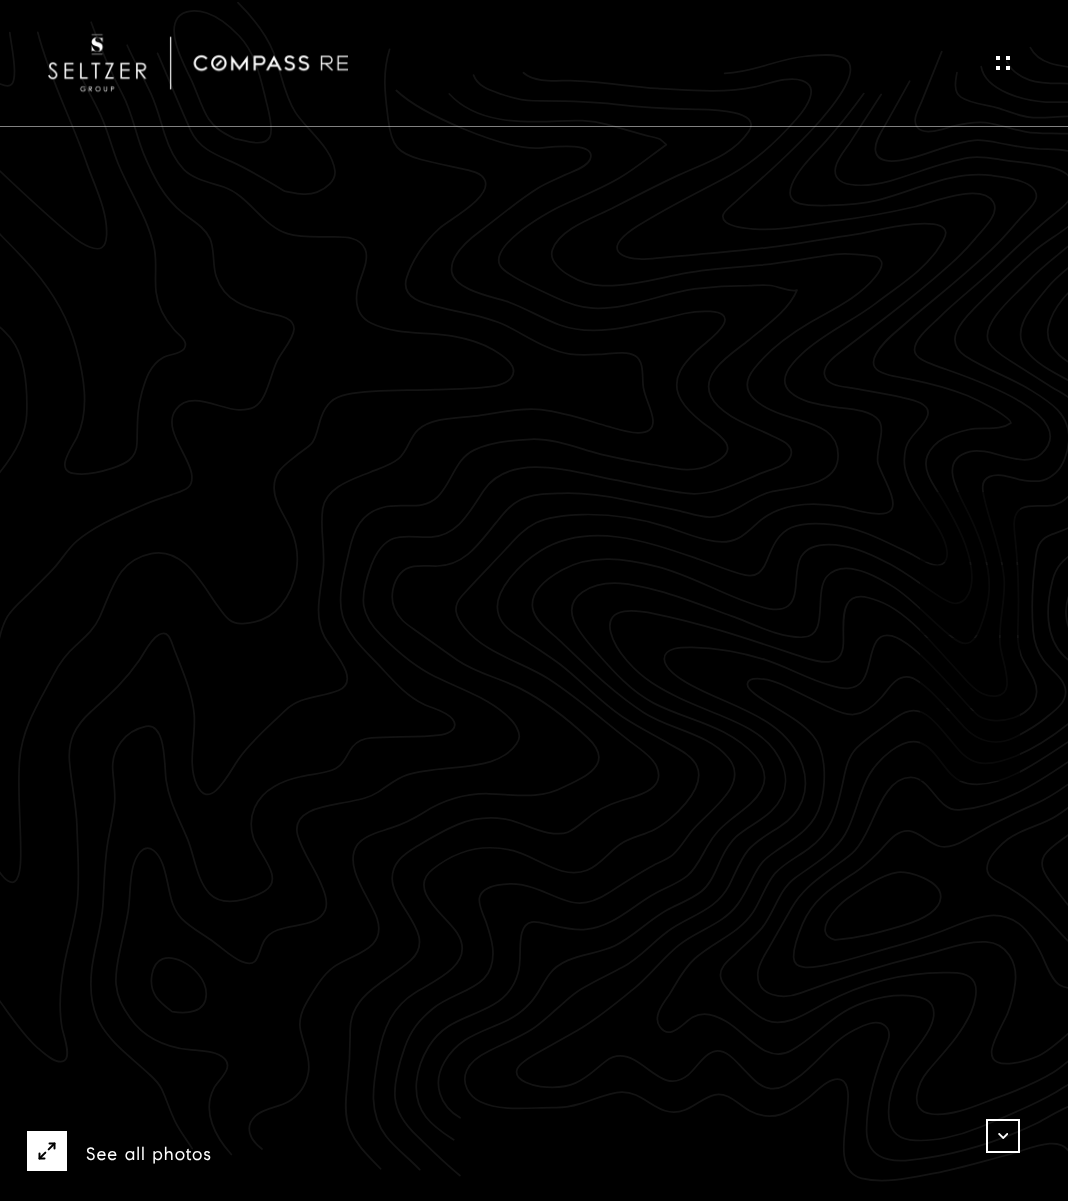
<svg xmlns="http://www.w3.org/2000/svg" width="1068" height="1201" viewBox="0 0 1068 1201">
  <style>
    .t1 { font: 18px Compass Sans; letter-spacing: 1px; fill: #fff; }
  </style>
  <rect width="100%" height="100%" fill="#000"/>
  <image x="0" y="2" width="1068" height="1180" href="images/2.png"/>
  <image x="48" y="33" width="300" height="60" href="images/1.png"/>
  <rect x="996" y="56" width="4" height="4" fill="#fff"/>
  <rect x="1006" y="56" width="4" height="4" fill="#fff"/>
  <rect x="996" y="66" width="4" height="4" fill="#fff"/>
  <rect x="1006" y="66" width="4" height="4" fill="#fff"/>
  <rect x="0" y="126" width="1068" height="1" fill="#ffffff80"/>
  <rect x="920" y="492" width="100" height="70" fill="#00000080"/>
  <rect x="920" y="565" width="100" height="70" fill="#00000080"/>
  <rect x="920" y="638" width="100" height="70" fill="#00000080"/>
  <rect x="920" y="711" width="100" height="70" fill="#00000080"/>
  <rect x="987" y="1120" width="32" height="32" fill="none" stroke="#fff" stroke-width="2"/>
  <image x="998" y="1133" width="10" height="6" href="images/3.png"/>
  <image x="27" y="1131" width="40" height="40" href="images/4.png"/>
  <text x="86" y="1160" class="t1">See all photos</text>
</svg>
